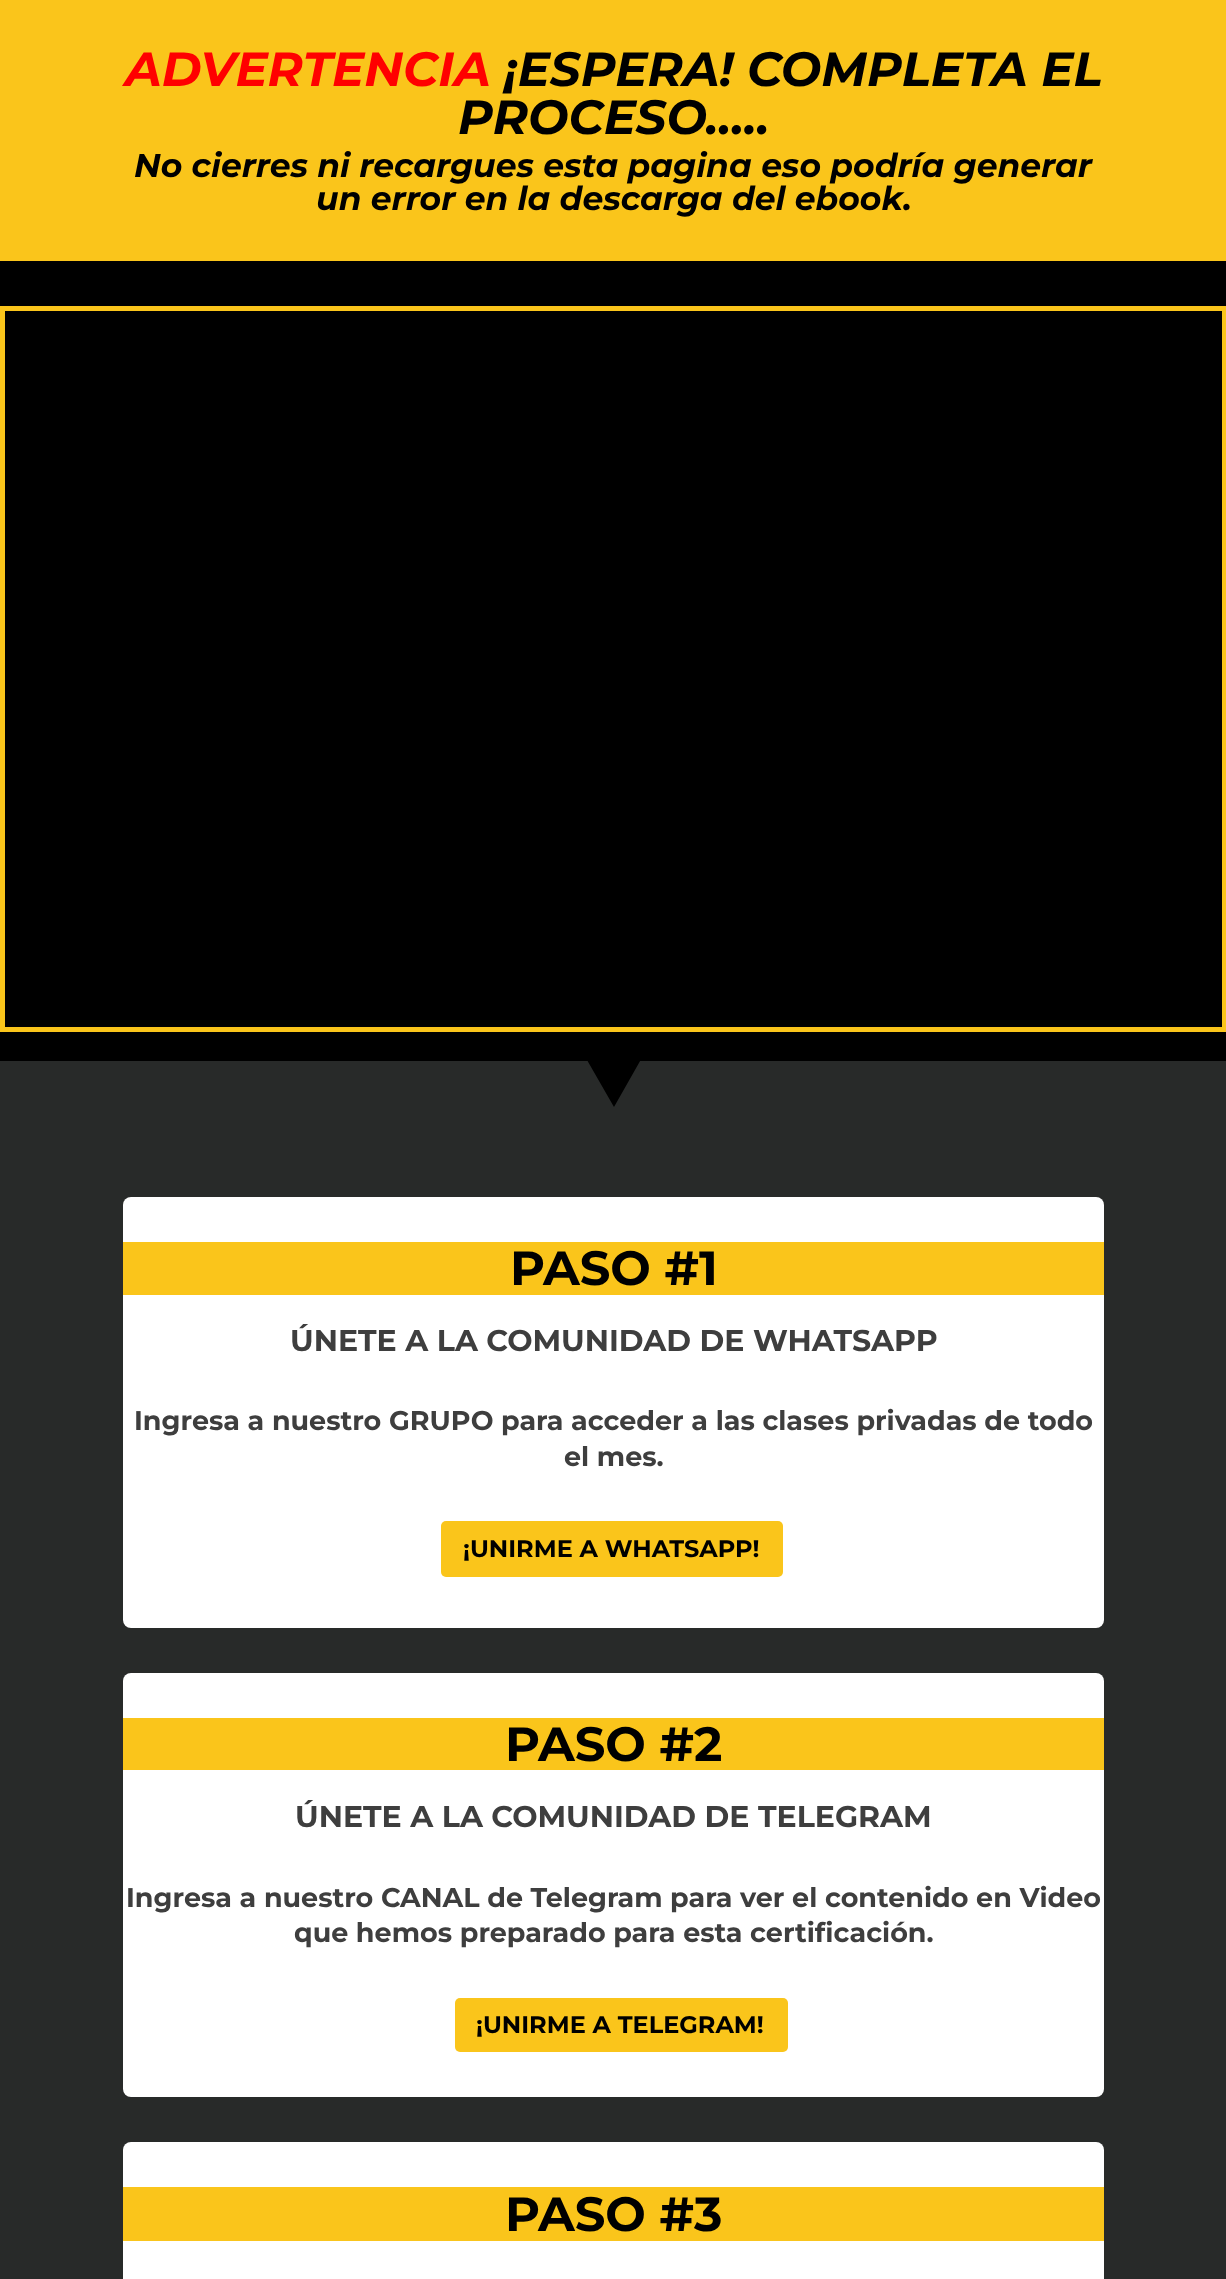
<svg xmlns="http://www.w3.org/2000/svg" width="1226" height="2279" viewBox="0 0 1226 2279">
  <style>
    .t1 { font: italic bold 48px Montserrat; fill: #f00; }
    .t2 { font: italic bold 48px Montserrat; fill: #000; }
    .t3 { font: italic bold 33px Montserrat; fill: #000; }
    .t4 { font: bold 48px Montserrat; fill: #000; }
    .t5 { font: bold 30px Montserrat; fill: #3e3e3e; }
    .t6 { font: bold 27px Montserrat; fill: #3e3e3e; }
    .t7 { font: bold 24px Montserrat; fill: #000; }
  </style>
  <defs>
    <clipPath id="clip1"><rect x="0" y="1061" width="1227" height="48"/></clipPath>
  </defs>
  <rect width="100%" height="100%" fill="#fac51b"/>
  <text x="125" y="86" class="t1">ADVERTENCIA</text>
  <text x="504" y="86" class="t2">¡ESPERA! COMPLETA EL</text>
  <text x="458" y="134" class="t2">PROCESO…..</text>
  <text x="134" y="177" class="t3">No cierres ni recargues esta pagina eso podría generar</text>
  <text x="316" y="210" class="t3">un error en la descarga del ebook.</text>
  <rect x="0" y="261" width="1226" height="846" fill="#000"/>
  <rect x="2.5" y="308.5" width="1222" height="721" fill="none" stroke="#fac51b" stroke-width="5"/>
  <g clip-path="url(#clip1)">
    <path d="M690 973L614 1107L537 973H0V1107H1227V973Z" fill="#282a29"/>
  </g>
  <rect x="0" y="1107" width="1226" height="1172" fill="#282a29"/>
  <rect x="123" y="1197" width="981" height="431" rx="8" fill="#fff"/>
  <rect x="123" y="1242" width="981" height="53" fill="#fac51b"/>
  <text x="510" y="1285" class="t4">PASO #1</text>
  <text x="290" y="1351" class="t5">ÚNETE A LA COMUNIDAD DE WHATSAPP</text>
  <text x="134" y="1430" class="t6">Ingresa a nuestro GRUPO para acceder a las clases privadas de todo</text>
  <text x="564" y="1466" class="t6">el mes.</text>
  <rect x="441" y="1521" width="342" height="56" rx="5" fill="#fac51b"/>
  <text x="463" y="1557" class="t7">¡UNIRME A WHATSAPP!</text>
  <rect x="123" y="1673" width="981" height="424" rx="8" fill="#fff"/>
  <rect x="123" y="1718" width="981" height="52" fill="#fac51b"/>
  <text x="505" y="1761" class="t4">PASO #2</text>
  <text x="295" y="1827" class="t5">ÚNETE A LA COMUNIDAD DE TELEGRAM</text>
  <text x="126" y="1907" class="t6">Ingresa a nuestro CANAL de Telegram para ver el contenido en Video</text>
  <text x="294" y="1942" class="t6">que hemos preparado para esta certificación.</text>
  <rect x="455" y="1998" width="333" height="54" rx="5" fill="#fac51b"/>
  <text x="476" y="2033" class="t7">¡UNIRME A TELEGRAM!</text>
  <rect x="123" y="2142" width="981" height="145" rx="8" fill="#fff"/>
  <rect x="123" y="2187" width="981" height="54" fill="#fac51b"/>
  <text x="505" y="2231" class="t4">PASO #3</text>
</svg>
